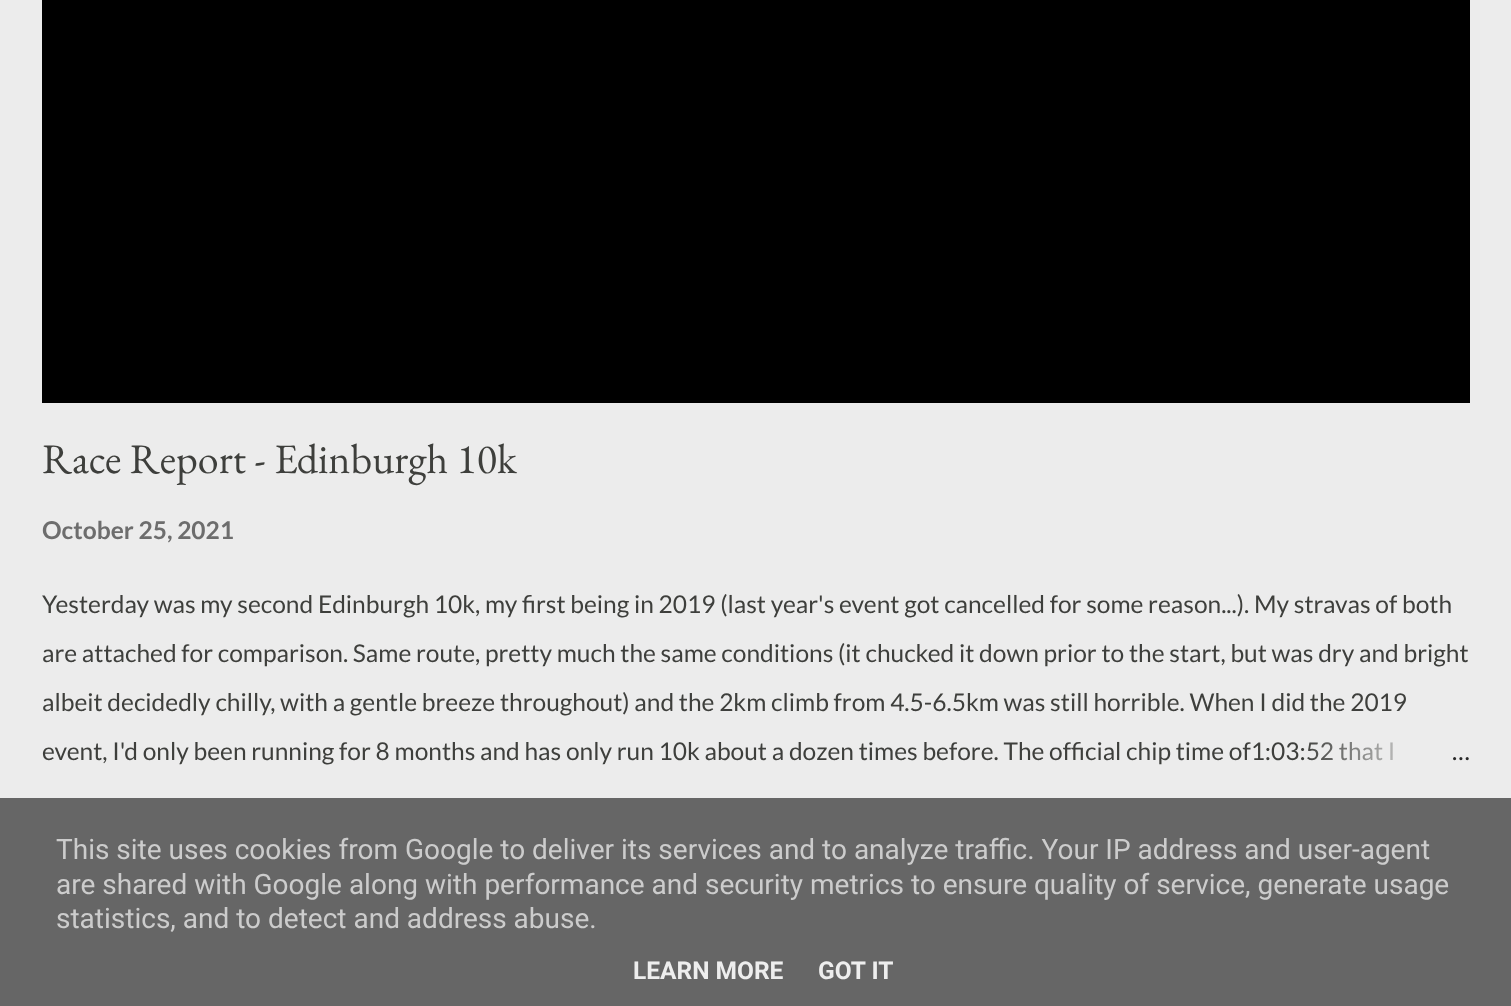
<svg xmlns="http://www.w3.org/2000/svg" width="1511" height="1006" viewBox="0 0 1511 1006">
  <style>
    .t1 { font: 42px EB Garamond; fill: #3e3f3c; }
    .t2 { font: bold 24.5px Lato; fill: #6d6d6d; }
    .t3 { font: 24.5px Lato; fill: #3e3f3c; }
    .t4 { font: 24.5px Lato; fill: #292929; }
    .t5 { font: 28px Roboto; fill: #ccc; }
    .t6 { font: bold 24.5px Roboto; fill: #eee; }
  </style>
  <defs>
    <linearGradient id="g1" gradientUnits="userSpaceOnUse" x1="1470" y1="751" x2="1302" y2="751"><stop offset="0" stop-color="#ececec"/><stop offset="0.2" stop-color="#ececec"/><stop offset="1" stop-color="#ececec" stop-opacity="0"/></linearGradient>
  </defs>
  <rect width="100%" height="100%" fill="#ececec"/>
  <rect x="42" y="0" width="1428" height="403" fill="#000"/>
  <text x="42" y="473" class="t1">Race Report - Edinburgh 10k</text>
  <text x="42" y="539" class="t2">October 25, 2021</text>
  <text x="42" y="613" class="t3">Yesterday was my second Edinburgh 10k, my first being in 2019 (last year's event got cancelled for some reason...). My stravas of both</text>
  <text x="42" y="662" class="t3">are attached for comparison. Same route, pretty much the same conditions (it chucked it down prior to the start, but was dry and bright</text>
  <text x="42" y="711" class="t3">albeit decidedly chilly, with a gentle breeze throughout) and the 2km climb from 4.5-6.5km was still horrible. When I did the 2019</text>
  <text x="42" y="760" class="t3">event, I'd only been running for 8 months and has only run 10k about a dozen times before. The official chip time of1:03:52 that I</text>
  <rect x="1307" y="741" width="86" height="20" fill="url(#g1)"/>
  <text x="1452" y="760" class="t4">…</text>
  <rect x="0" y="798" width="1511" height="208" fill="#666"/>
  <text x="56" y="859" class="t5">This site uses cookies from Google to deliver its services and to analyze traffic. Your IP address and user-agent</text>
  <text x="56" y="894" class="t5">are shared with Google along with performance and security metrics to ensure quality of service, generate usage</text>
  <text x="56" y="928" class="t5">statistics, and to detect and address abuse.</text>
  <text x="633" y="979" class="t6">LEARN MORE</text>
  <text x="818" y="979" class="t6">GOT IT</text>
</svg>
